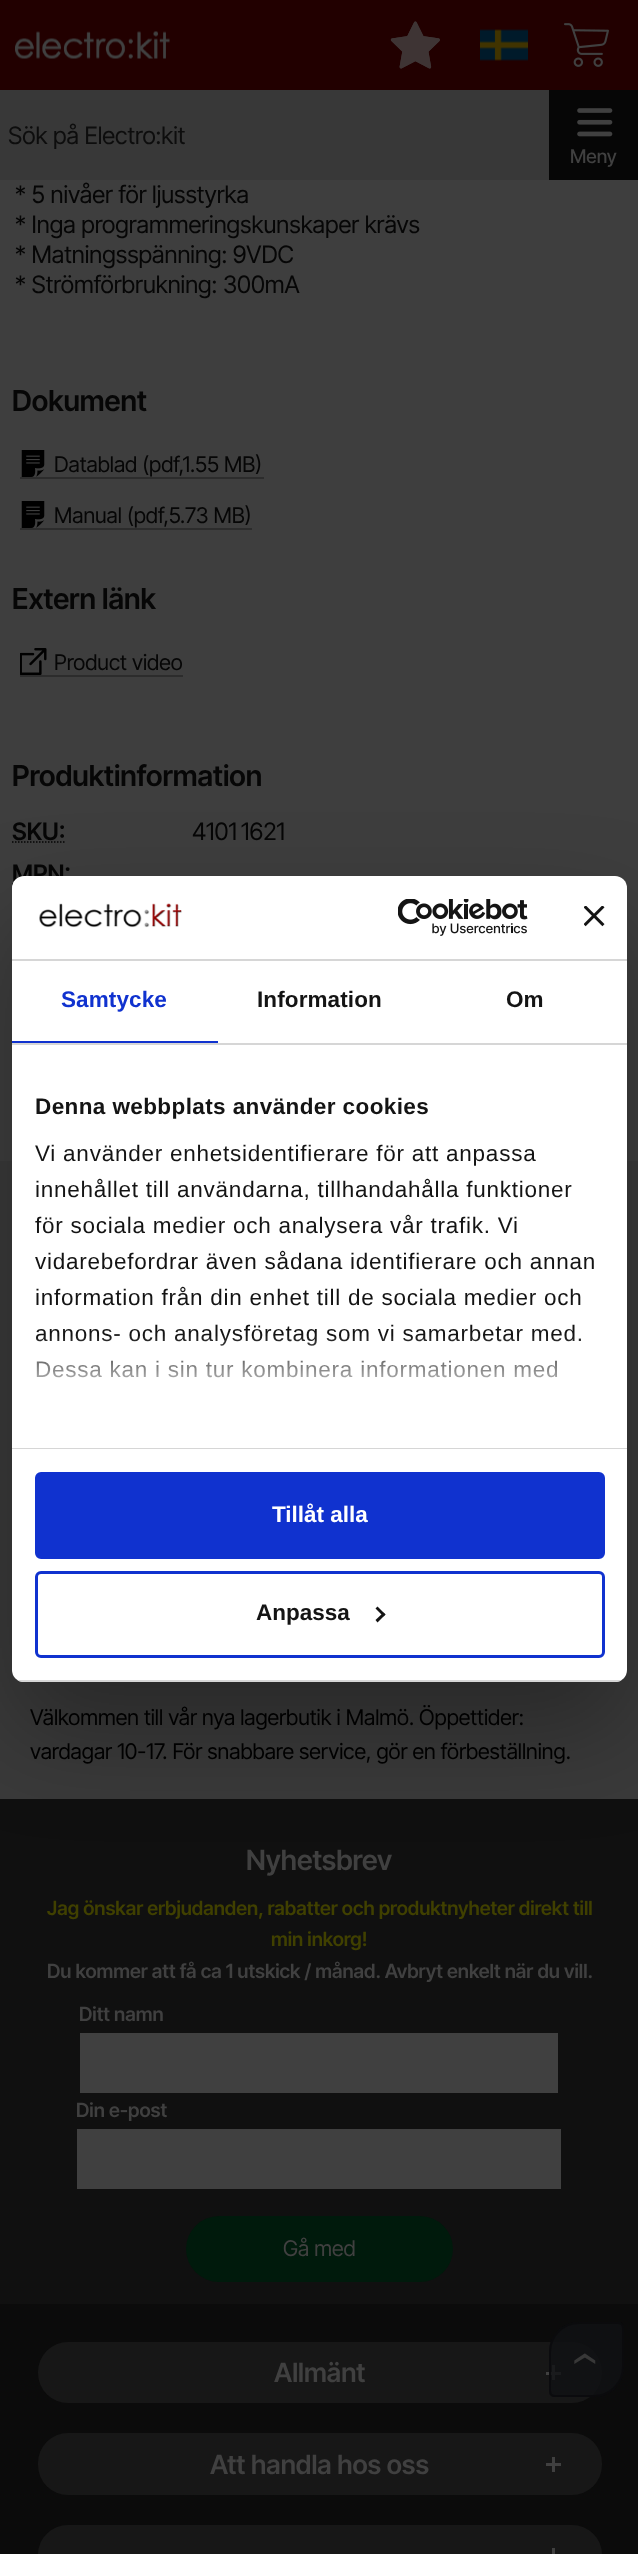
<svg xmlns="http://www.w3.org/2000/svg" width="638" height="2554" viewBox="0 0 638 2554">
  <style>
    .t1 { font: 24px Inter Tight; fill: #0d0d0d; }
    .t2 { font: 500 19px Inter Tight; fill: #404040; }
    .t3 { font: 24px Inter Tight; fill: #060606; }
    .t4 { font: 600 28.75px Inter Tight; fill: #060606; }
    .t5 { font: 21.6px Inter Tight; fill: #060606; }
    .t6 { font: 600 24px Inter Tight; fill: #060606; }
    .t7 { font: bold 22.5px Liberation Sans; letter-spacing: 0.1px; fill: #1032cf; }
    .t8 { font: bold 22.5px Liberation Sans; letter-spacing: 0.1px; fill: #141414; }
    .t9 { font: bold 22.5px Liberation Sans; letter-spacing: 0.4px; fill: #141414; }
    .t10 { font: 22.5px Liberation Sans; letter-spacing: 0.75px; fill: #141414; }
    .t11 { font: bold 22.5px Liberation Sans; fill: #fff; }
    .t12 { font: bold 22.5px Liberation Sans; fill: #141414; }
    .t13 { font: 21.6px Inter Tight; fill: #000; }
    .t14 { font: 600 28px Inter Tight; fill: #404040; }
    .t15 { font: 600 19.45px Inter Tight; fill: #404000; }
    .t16 { font: 600 19.45px Inter Tight; fill: #404040; }
    .t17 { font: 21.6px Inter Tight; fill: #404040; }
    .t18 { font: 600 26.5px Inter Tight; fill: #404040; }
    .t19 { font: 48px Inter Tight; fill: #383838; }
  </style>
  <defs>
    <linearGradient id="g1" gradientUnits="userSpaceOnUse" x1="310" y1="1447" x2="310" y2="1334"><stop offset="0" stop-color="#fff"/><stop offset="0.5" stop-color="#fff" stop-opacity="0.8"/><stop offset="1" stop-color="#fff" stop-opacity="0"/></linearGradient>
    <clipPath id="clip1"><rect x="12" y="876" width="615" height="806" rx="12"/></clipPath>
  </defs>
  <rect width="100%" height="100%" fill="#3e3e3e"/>
  <rect x="0" y="0" width="638" height="90" fill="#200"/>
  <image x="15" y="31" width="155" height="28" href="images/1.png"/>
  <image x="390" y="21" width="50" height="48" href="images/2.png"/>
  <image x="480" y="29" width="48" height="32" href="images/3.png"/>
  <image x="564" y="23" width="45" height="44" href="images/4.png"/>
  <rect x="0" y="90" width="549" height="90" fill="#383838"/>
  <text x="8" y="144" class="t1">Sök på Electro:kit</text>
  <rect x="549" y="90" width="89" height="90" fill="#060606"/>
  <image x="577" y="108" width="36" height="29" href="images/5.png"/>
  <text x="570" y="163" class="t2">Meny</text>
  <text x="15" y="203" class="t3">* 5 nivåer för ljusstyrka</text>
  <text x="15" y="233" class="t3">* Inga programmeringskunskaper krävs</text>
  <text x="15" y="263" class="t3">* Matningsspänning: 9VDC</text>
  <text x="15" y="293" class="t3">* Strömförbrukning: 300mA</text>
  <text x="12" y="411" class="t4">Dokument</text>
  <rect x="20" y="477" width="244" height="2" fill="#2c2c2c"/>
  <image x="21" y="450" width="24" height="27" href="images/6.png"/>
  <text x="54" y="472" class="t5">Datablad (pdf,1.55 MB)</text>
  <rect x="20" y="528" width="232" height="2" fill="#2c2c2c"/>
  <image x="21" y="501" width="24" height="27" href="images/6.png"/>
  <text x="54" y="523" class="t5">Manual (pdf,5.73 MB)</text>
  <text x="12" y="609" class="t4">Extern länk</text>
  <rect x="20" y="675" width="163" height="2" fill="#2c2c2c"/>
  <image x="20" y="648" width="27" height="27" href="images/7.png"/>
  <text x="54" y="670" class="t5">Product video</text>
  <text x="12" y="786" class="t4">Produktinformation</text>
  <text x="12" y="840" class="t6">SKU:</text>
  <path d="M12 842H65.5" fill="none" stroke="#060606" stroke-width="1.5" stroke-dasharray="1.5 1.5"/>
  <text x="192" y="840" class="t3">4101</text>
  <text x="241" y="840" class="t3">1621</text>
  <text x="12" y="882" class="t6">MPN:</text>
  <path d="M12 884H71" fill="none" stroke="#060606" stroke-width="1.5" stroke-dasharray="1.5 1.5"/>
  <rect x="0" y="1161" width="638" height="638" fill="#3a3a3a"/>
  <rect x="0" y="1799" width="638" height="505" fill="#101010"/>
  <rect x="12" y="924" width="615" height="806" rx="12" fill="#0000004d" filter="blur(51px)"/>
  <rect x="12" y="876" width="615" height="806" rx="12" fill="#fff"/>
  <rect x="12" y="959" width="615" height="2" fill="#d6d6d6"/>
  <image x="39" y="903" width="143" height="25" href="images/8.png"/>
  <image x="398" y="899" width="130" height="37" href="images/9.png"/>
  <image x="584" y="906" width="21" height="21" href="images/10.png"/>
  <rect x="12" y="1043" width="615" height="2" fill="#d6d6d6"/>
  <rect x="12" y="1041" width="206" height="2" fill="#1032cf"/>
  <text x="61" y="1007" class="t7">Samtycke</text>
  <text x="257" y="1007" class="t8">Information</text>
  <text x="506" y="1007" class="t8">Om</text>
  <rect x="12" y="1448" width="615" height="1" fill="#d6d6d6"/>
  <text x="35" y="1114" class="t9">Denna webbplats använder cookies</text>
  <text x="35" y="1161" class="t10">Vi använder enhetsidentifierare för att anpassa</text>
  <text x="35" y="1197" class="t10">innehållet till användarna, tillhandahålla funktioner</text>
  <text x="35" y="1233" class="t10">för sociala medier och analysera vår trafik. Vi</text>
  <text x="35" y="1269" class="t10">vidarebefordrar även sådana identifierare och annan</text>
  <text x="35" y="1305" class="t10">information från din enhet till de sociala medier och</text>
  <text x="35" y="1341" class="t10">annons- och analysföretag som vi samarbetar med.</text>
  <text x="35" y="1377" class="t10">Dessa kan i sin tur kombinera informationen med</text>
  <rect x="35" y="1336" width="546" height="42" fill="url(#g1)"/>
  <g clip-path="url(#clip1)">
    <rect x="12" y="1680" width="615" height="2" fill="#d6d6d6"/>
  </g>
  <rect x="36.5" y="1473.5" width="567" height="84" rx="4.5" fill="#1032cf" stroke="#1032cf" stroke-width="3"/>
  <text x="272" y="1522" class="t11">Tillåt alla</text>
  <rect x="36.5" y="1572.5" width="567" height="84" rx="4.5" fill="none" stroke="#1032cf" stroke-width="3"/>
  <text x="256" y="1620" class="t12">Anpassa</text>
  <path d="M377.5 1606.5L385.5 1614.5L383.5 1616.5L375.5 1608.5Z" fill="#141414"/>
  <path d="M383.5 1612.5L385.5 1614.5L377.5 1622.5L375.5 1620Z" fill="#141414"/>
  <rect x="0" y="2304" width="638" height="250" fill="#0b0b0b"/>
  <text x="30" y="1725" class="t13">Välkommen till vår nya lagerbutik i Malmö. Öppettider:</text>
  <text x="30" y="1759" class="t13">vardagar 10-17. För snabbare service, gör en förbeställning.</text>
  <text x="246" y="1870" class="t14">Nyhetsbrev</text>
  <text x="47" y="1915" class="t15">Jag önskar erbjudanden, rabatter och produktnyheter direkt till</text>
  <text x="271" y="1946" class="t15">min inkorg!</text>
  <text x="47" y="1978" class="t16">Du kommer att få ca 1 utskick / månad. Avbryt enkelt när du vill.</text>
  <text x="79" y="2021" class="t16">Ditt namn</text>
  <rect x="80" y="2033" width="478" height="60" fill="#404040"/>
  <text x="76" y="2117" class="t16">Din e-post</text>
  <rect x="77" y="2129" width="484" height="60" fill="#404040"/>
  <rect x="186" y="2216" width="267" height="66" rx="33" fill="#001a0c"/>
  <text x="283" y="2256" class="t17">Gå med</text>
  <rect x="38" y="2342" width="564" height="61" rx="30" fill="#171717"/>
  <text x="274" y="2382" class="t18">Allmänt</text>
  <rect x="546" y="2372" width="15" height="3" fill="#404040"/>
  <rect x="552" y="2365" width="3" height="15" fill="#404040"/>
  <rect x="38" y="2433" width="564" height="62" rx="30" fill="#171717"/>
  <text x="210" y="2474" class="t18">Att handla hos oss</text>
  <rect x="546" y="2463" width="15" height="3" fill="#404040"/>
  <rect x="552" y="2457" width="3" height="15" fill="#404040"/>
  <rect x="38" y="2525" width="564" height="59" rx="30" fill="#171717"/>
  <rect x="552" y="2548" width="3" height="6" fill="#404040"/>
  <path d="M579 2322H618C621.5 2322 624 2324.5 624 2328V2367C624 2383.5 610.5 2397 594 2397H555C551.5 2397 549 2394.5 549 2391V2352C549 2335.5 562.5 2322 579 2322Z" fill="#101114cc"/>
  <path d="M579 2323H618C621 2323 623 2325 623 2328V2367C623 2383 610 2396 594 2396H555C552 2396 550 2394 550 2391V2352C550 2336 563 2323 579 2323Z" fill="none" stroke="#0a0a0dcc" stroke-width="2"/>
  <text x="599" y="2366" transform="rotate(-90 599 2366)" class="t19">›</text>
</svg>
